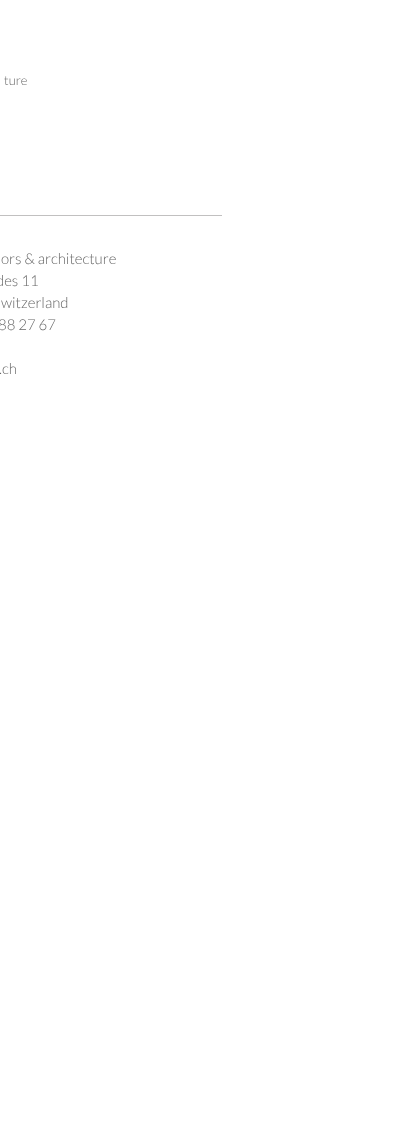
<svg xmlns="http://www.w3.org/2000/svg" width="412" height="1140" viewBox="0 0 412 1140">
  <style>
    .t1 { font: 300 13px Lato; fill: #686868; }
    .t2 { font: 300 15px Lato; fill: #686868; }
  </style>
  <rect width="100%" height="100%" fill="#fff"/>
  <text x="4" y="85" class="t1">ture</text>
  <rect x="0" y="215" width="222" height="1" fill="#c1c0c0"/>
  <text x="1" y="264" class="t2">ors &amp; architecture</text>
  <text x="-4" y="286" class="t2">des 11</text>
  <text x="1" y="308" class="t2">witzerland</text>
  <text x="-2" y="330" class="t2">88 27 67</text>
  <text x="-1" y="374" class="t2">.ch</text>
</svg>
